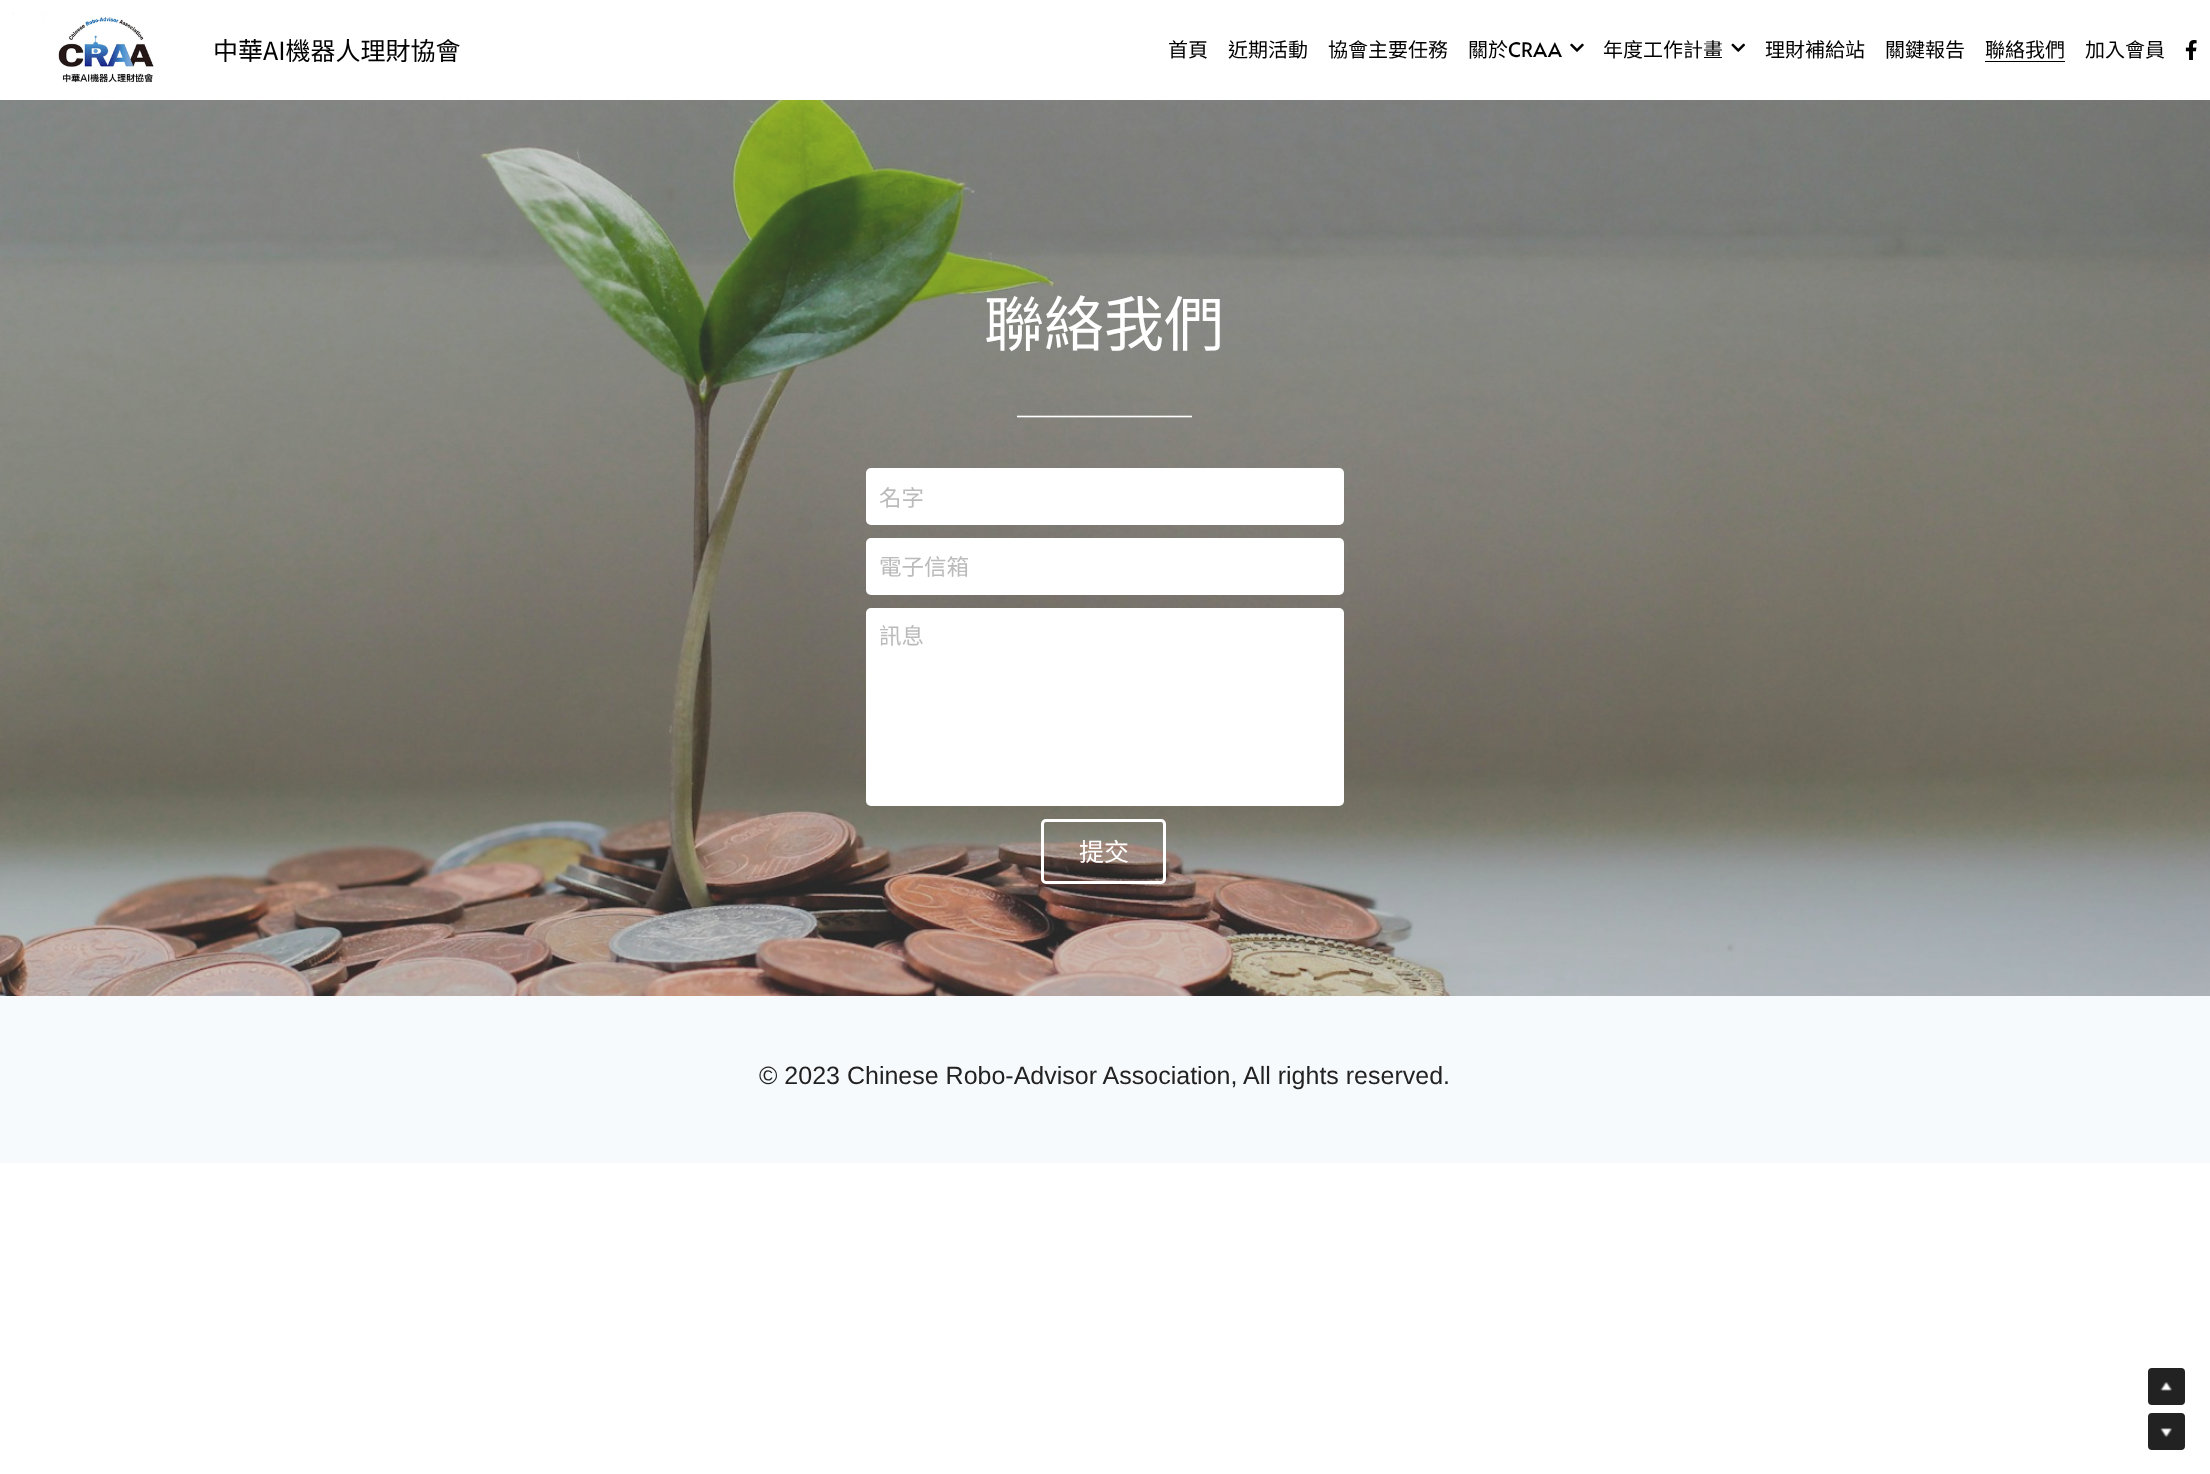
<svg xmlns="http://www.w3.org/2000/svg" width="2210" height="1474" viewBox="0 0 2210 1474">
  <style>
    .t1 { font: 25px Noto Sans TC; fill: #000; }
    .t2 { font: 20px Noto Sans CJK TC; fill: #000; }
    .t3 { font: 20px Alata; fill: #000; }
    .t4 { font: 60px Noto Sans TC; fill: #fff; }
    .t5 { font: 35px Noto Sans TC; fill: #fff; }
    .t6 { font: 22.5px Noto Sans CJK TC; fill: #bbb; }
    .t7 { font: 25px Noto Sans TC; fill: #fff; }
    .t8 { font: 25px Liberation Sans; fill: #222; }
  </style>
  <rect width="100%" height="100%" fill="#fff"/>
  <image x="12" y="12" width="142" height="71" href="images/1.png"/>
  <text x="213" y="60" class="t1">中華AI機器人理財協會</text>
  <text x="1168" y="57" class="t2">首頁</text>
  <text x="1228" y="57" class="t2">近期活動</text>
  <text x="1328" y="57" class="t2">協會主要任務</text>
  <text x="1468" y="57" class="t2">關於</text>
  <text x="1508" y="57" class="t3">CRAA</text>
  <image x="1570" y="43" width="14" height="9" href="images/2.png"/>
  <text x="1603" y="57" class="t2">年度工作計畫</text>
  <image x="1731" y="43" width="14" height="9" href="images/3.png"/>
  <text x="1765" y="57" class="t2">理財補給站</text>
  <text x="1885" y="57" class="t2">關鍵報告</text>
  <rect x="1985" y="61" width="80" height="1" fill="#000"/>
  <text x="1985" y="57" class="t2">聯絡我們</text>
  <text x="2085" y="57" class="t2">加入會員</text>
  <image x="2185" y="40" width="12" height="20" href="images/4.png"/>
  <image x="0" y="100" width="2210" height="896" href="images/5.png"/>
  <text x="984" y="346" class="t4">聯絡我們</text>
  <text x="1017" y="413" class="t5">＿＿＿＿＿</text>
  <rect x="866" y="468" width="478" height="57" rx="5" fill="#fff"/>
  <text x="879" y="506" class="t6">名字</text>
  <rect x="866" y="538" width="478" height="57" rx="5" fill="#fff"/>
  <text x="879" y="575" class="t6">電子信箱</text>
  <rect x="866" y="608" width="478" height="198" rx="5" fill="#fff"/>
  <text x="879" y="644" class="t6">訊息</text>
  <rect x="1042.5" y="820.5" width="122" height="62" rx="3.5" fill="none" stroke="#fff" stroke-width="3"/>
  <text x="1079" y="861" class="t7">提交</text>
  <rect x="0" y="996" width="2210" height="167" fill="#f7fafd"/>
  <text x="759" y="1084" class="t8">© 2023 Chinese Robo-Advisor Association, All rights reserved.</text>
  <rect x="2148" y="1368" width="37" height="37" rx="4" fill="#222"/>
  <image x="2160" y="1382" width="12" height="9" href="images/6.png"/>
  <rect x="2148" y="1413" width="37" height="37" rx="4" fill="#222"/>
  <image x="2160" y="1428" width="12" height="9" href="images/7.png"/>
</svg>
